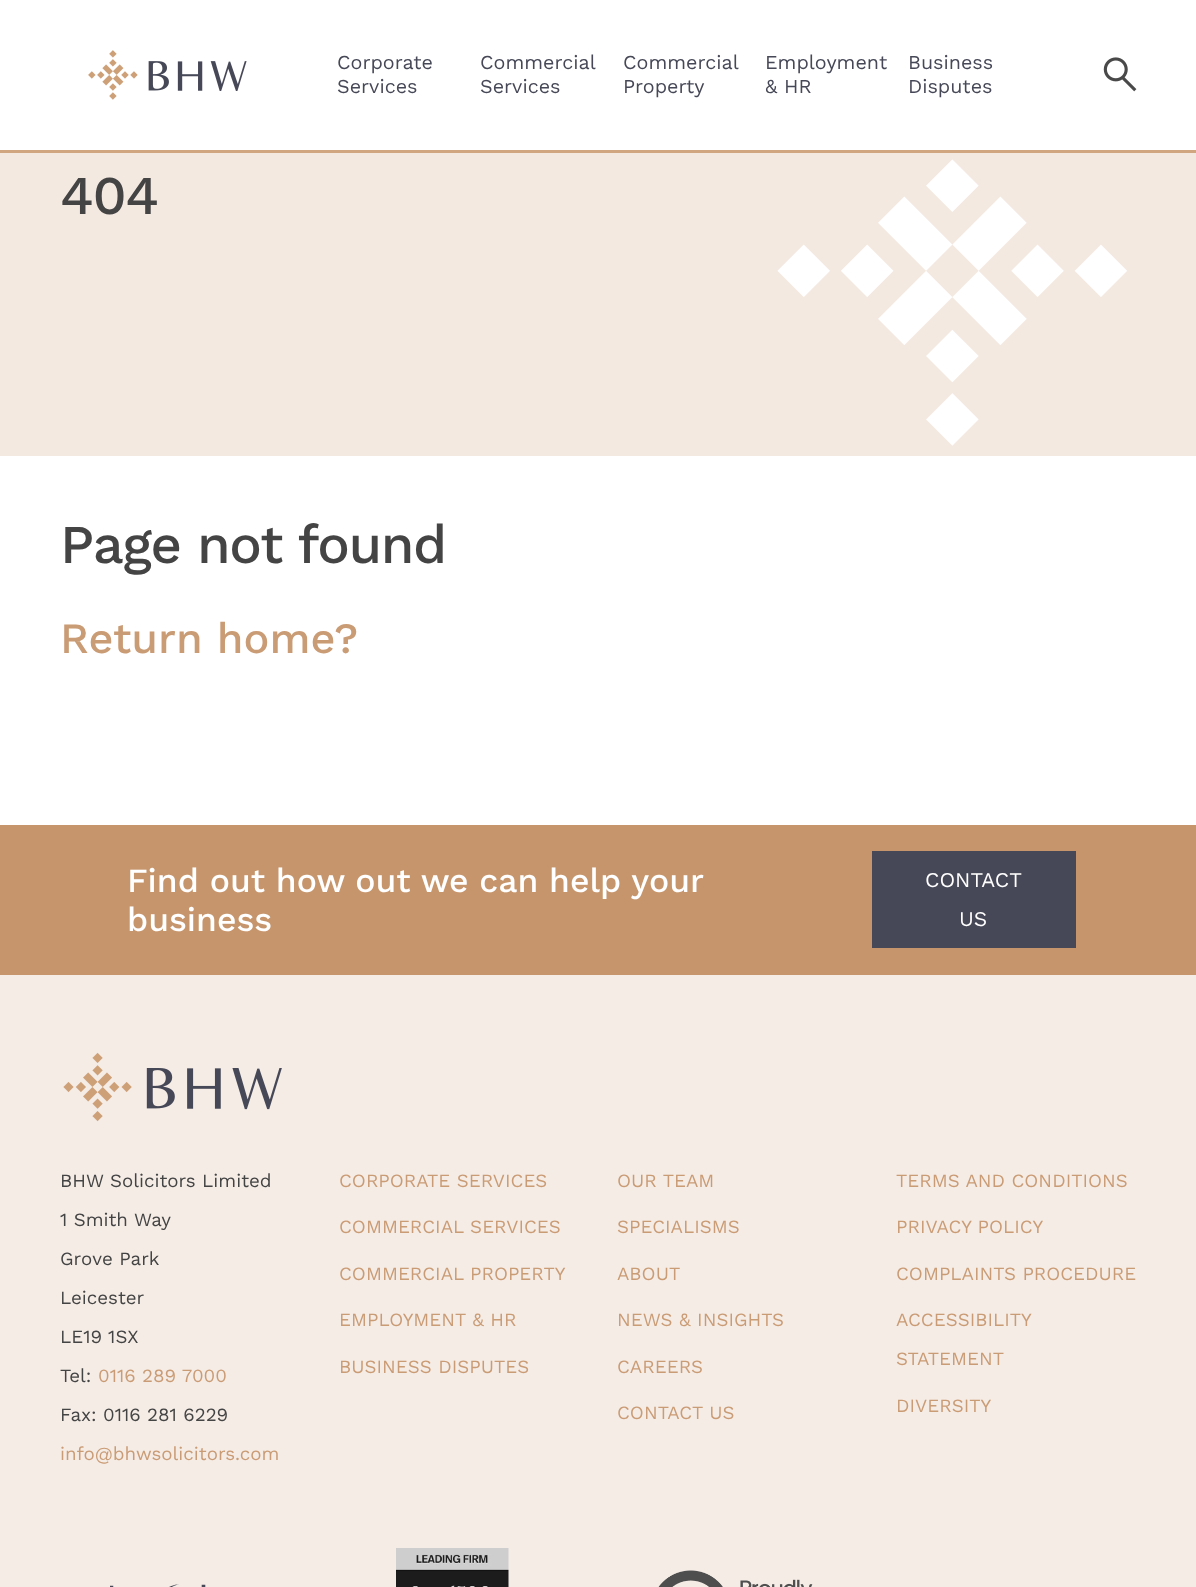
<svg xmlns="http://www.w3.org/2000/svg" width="1196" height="1587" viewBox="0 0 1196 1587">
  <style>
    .t1 { font: 19.75px Work Sans; fill: #464857; }
    .t2 { font: 500 54.5px Work Sans; letter-spacing: -1.4px; fill: #444; }
    .t3 { font: 500 43.25px Work Sans; fill: #ca9c75; }
    .t4 { font: 500 33.75px Work Sans; fill: #fff; }
    .t5 { font: 21px Work Sans; fill: #fff; }
    .t6 { font: 18.75px Work Sans; fill: #444; }
    .t7 { font: 18.75px Work Sans; fill: #ca9c75; }
  </style>
  <rect width="100%" height="100%" fill="#fff"/>
  <rect x="0" y="150" width="1196" height="3" fill="#d0a680"/>
  <image x="88" y="50" width="159" height="50" href="images/1.png"/>
  <text x="337" y="69" class="t1">Corporate</text>
  <text x="337" y="93" class="t1">Services</text>
  <text x="480" y="69" class="t1">Commercial</text>
  <text x="480" y="93" class="t1">Services</text>
  <text x="623" y="69" class="t1">Commercial</text>
  <text x="623" y="93" class="t1">Property</text>
  <text x="765" y="69" class="t1">Employment</text>
  <text x="765" y="93" class="t1">&amp; HR</text>
  <text x="908" y="69" class="t1">Business</text>
  <text x="908" y="93" class="t1">Disputes</text>
  <image x="1103" y="57" width="34" height="35" href="images/2.png"/>
  <rect x="0" y="153" width="1196" height="303" fill="#f4e9e1"/>
  <image x="777" y="159" width="350" height="287" href="images/3.png"/>
  <text x="60" y="214" class="t2">404</text>
  <text x="60" y="563" class="t2">Page not found</text>
  <text x="60" y="653" class="t3">Return home?</text>
  <rect x="0" y="825" width="1196" height="150" fill="#c6956c"/>
  <text x="127" y="892" word-spacing="-0.25" class="t4">Find out how out we can help your</text>
  <text x="127" y="931" class="t4">business</text>
  <rect x="872" y="851" width="204" height="97" fill="#464857"/>
  <text x="925" y="887" class="t5">CONTACT</text>
  <text x="959" y="926" class="t5">US</text>
  <rect x="0" y="975" width="1196" height="612" fill="#f5ece6"/>
  <image x="63" y="1052" width="219" height="70" href="images/4.png"/>
  <text x="60" y="1187" class="t6">BHW Solicitors Limited</text>
  <text x="60" y="1226" class="t6">1 Smith Way</text>
  <text x="60" y="1265" class="t6">Grove Park</text>
  <text x="60" y="1304" class="t6">Leicester</text>
  <text x="60" y="1343" class="t6">LE19 1SX</text>
  <text x="60" y="1382" class="t6">Tel:</text>
  <text x="98" y="1382" class="t7">0116 289 7000</text>
  <text x="60" y="1421" class="t6">Fax: 0116 281 6229</text>
  <text x="60" y="1460" class="t7">info@bhwsolicitors.com</text>
  <text x="339" y="1187" class="t7">CORPORATE SERVICES</text>
  <text x="339" y="1233" class="t7">COMMERCIAL SERVICES</text>
  <text x="339" y="1280" class="t7">COMMERCIAL PROPERTY</text>
  <text x="339" y="1326" class="t7">EMPLOYMENT &amp; HR</text>
  <text x="339" y="1373" class="t7">BUSINESS DISPUTES</text>
  <text x="617" y="1187" class="t7">OUR TEAM</text>
  <text x="617" y="1233" class="t7">SPECIALISMS</text>
  <text x="617" y="1280" class="t7">ABOUT</text>
  <text x="617" y="1326" class="t7">NEWS &amp; INSIGHTS</text>
  <text x="617" y="1373" class="t7">CAREERS</text>
  <text x="617" y="1419" class="t7">CONTACT US</text>
  <text x="896" y="1187" class="t7">TERMS AND CONDITIONS</text>
  <text x="896" y="1233" class="t7">PRIVACY POLICY</text>
  <text x="896" y="1280" class="t7">COMPLAINTS PROCEDURE</text>
  <text x="896" y="1326" class="t7">ACCESSIBILITY</text>
  <text x="896" y="1365" class="t7">STATEMENT</text>
  <text x="896" y="1412" class="t7">DIVERSITY</text>
  <image x="110" y="1584" width="96" height="3" href="images/5.png"/>
  <image x="396" y="1548" width="113" height="39" href="images/6.png"/>
  <image x="658" y="1570" width="155" height="17" href="images/7.png"/>
</svg>
